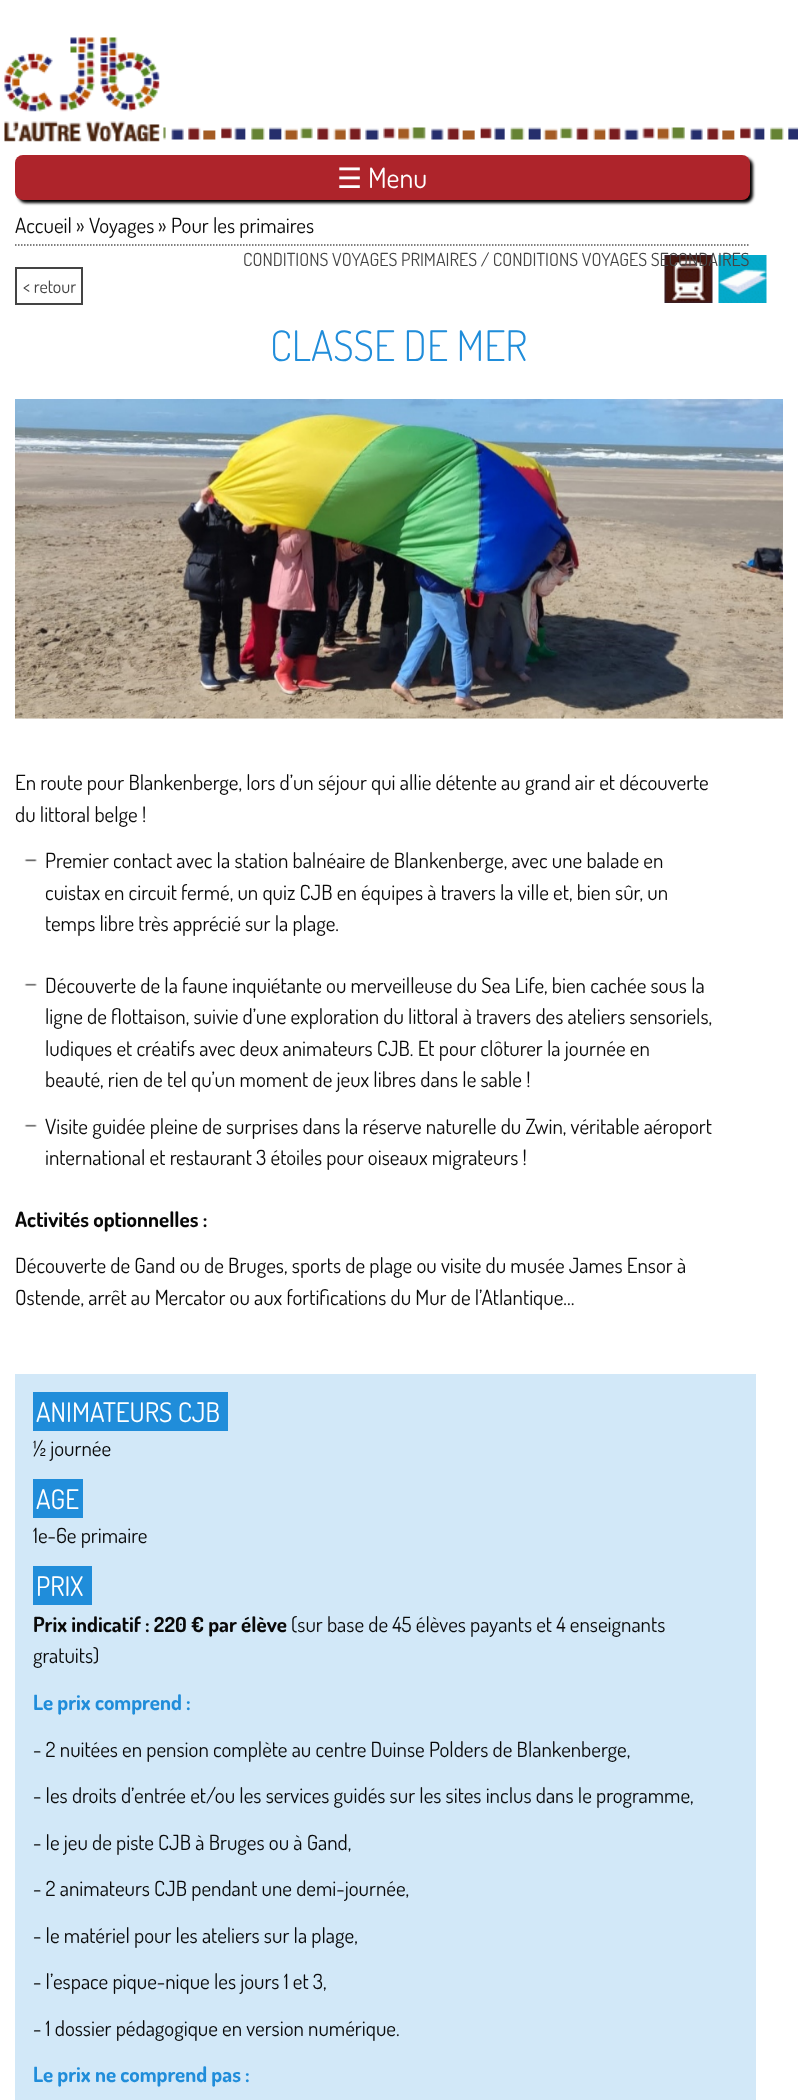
<svg xmlns="http://www.w3.org/2000/svg" width="798" height="2100" viewBox="0 0 798 2100">
  <style>
    .t1 { font: 28px DejaVu Sans; fill: #fff; }
    .t2 { font: 28px Dosis; fill: #fff; }
    .t3 { font: 21px Dosis; fill: #090909; }
    .t4 { font: 21px Dosis; fill: #222; }
    .t5 { font: 18px Dosis; fill: #444; }
    .t6 { font: 300 42px Dosis; fill: #208dda; }
    .t7 { font: bold 21px Dosis; fill: #090909; }
    .t8 { font: 27px Dosis; fill: #fff; }
    .t9 { font: bold 21px Dosis; fill: #208dda; }
  </style>
  <rect width="100%" height="100%" fill="#fff"/>
  <image x="163" y="127" width="635" height="13" href="images/1.png"/>
  <image x="0" y="37" width="164" height="105" href="images/2.png"/>
  <rect x="18" y="158" width="735" height="45" rx="8" fill="#000" filter="blur(1.5px)"/>
  <rect x="15" y="155" width="735" height="45" rx="8" fill="#ae242b"/>
  <text x="337" y="188" class="t1">☰</text>
  <text x="368" y="188" class="t2">Menu</text>
  <path d="M15 245H748.5" fill="none" stroke="#555" stroke-width="1.5" stroke-dasharray="1.5 1.5"/>
  <text x="15" y="233" class="t3">Accueil</text>
  <text x="76" y="233" class="t4">»</text>
  <text x="89" y="233" class="t3">Voyages</text>
  <text x="158" y="233" class="t4">»</text>
  <text x="171" y="233" class="t3">Pour les primaires</text>
  <image x="664" y="255" width="49" height="48" href="images/3.png"/>
  <image x="718" y="255" width="49" height="48" href="images/4.png"/>
  <text x="243" y="266" class="t5">CONDITIONS VOYAGES PRIMAIRES / CONDITIONS VOYAGES SECONDAIRES</text>
  <rect x="16" y="268" width="66" height="36" fill="none" stroke="#444" stroke-width="2"/>
  <text x="23" y="293" class="t5">&lt; retour</text>
  <text x="270" y="361" class="t6">CLASSE DE MER</text>
  <image x="15" y="399" width="768" height="320" href="images/5.png"/>
  <text x="15" y="790" class="t3">En route pour Blankenberge, lors d’un séjour qui allie détente au grand air et découverte</text>
  <text x="15" y="822" class="t3">du littoral belge !</text>
  <image x="24" y="859" width="13" height="3" href="images/6.png"/>
  <text x="45" y="868" class="t3">Premier contact avec la station balnéaire de Blankenberge, avec une balade en</text>
  <text x="45" y="900" class="t3">cuistax en circuit fermé, un quiz CJB en équipes à travers la ville et, bien sûr, un</text>
  <text x="45" y="931" class="t3">temps libre très apprécié sur la plage.</text>
  <image x="24" y="983" width="13" height="3" href="images/7.png"/>
  <text x="45" y="993" class="t3">Découverte de la faune inquiétante ou merveilleuse du Sea Life, bien cachée sous la</text>
  <text x="45" y="1024" class="t3">ligne de flottaison, suivie d’une exploration du littoral à travers des ateliers sensoriels,</text>
  <text x="45" y="1056" class="t3">ludiques et créatifs avec deux animateurs CJB. Et pour clôturer la journée en</text>
  <text x="45" y="1087" class="t3">beauté, rien de tel qu’un moment de jeux libres dans le sable !</text>
  <image x="24" y="1124" width="13" height="3" href="images/7.png"/>
  <text x="45" y="1134" class="t3">Visite guidée pleine de surprises dans la réserve naturelle du Zwin, véritable aéroport</text>
  <text x="45" y="1165" class="t3">international et restaurant 3 étoiles pour oiseaux migrateurs !</text>
  <text x="15" y="1227" class="t7">Activités optionnelles :</text>
  <text x="15" y="1273" class="t3">Découverte de Gand ou de Bruges, sports de plage ou visite du musée James Ensor à</text>
  <text x="15" y="1305" class="t3">Ostende, arrêt au Mercator ou aux fortifications du Mur de l’Atlantique…</text>
  <rect x="15" y="1374" width="741" height="726" fill="#d2e8f8"/>
  <rect x="33" y="1392" width="195" height="39" fill="#208dda"/>
  <text x="36" y="1422" class="t8">ANIMATEURS CJB</text>
  <text x="33" y="1456" class="t3">½ journée</text>
  <rect x="33" y="1479" width="50" height="39" fill="#208dda"/>
  <text x="36" y="1509" class="t8">AGE</text>
  <text x="33" y="1543" class="t3">1e-6e primaire</text>
  <rect x="33" y="1566" width="59" height="39" fill="#208dda"/>
  <text x="36" y="1596" class="t8">PRIX</text>
  <text x="33" y="1632" class="t7">Prix indicatif : 220 € par élève</text>
  <text x="291" y="1632" class="t3">(sur base de 45 élèves payants et 4 enseignants</text>
  <text x="33" y="1663" class="t3">gratuits)</text>
  <text x="33" y="1710" class="t9">Le prix comprend :</text>
  <text x="33" y="1757" class="t3">- 2 nuitées en pension complète au centre Duinse Polders de Blankenberge,</text>
  <text x="33" y="1803" class="t3">- les droits d’entrée et/ou les services guidés sur les sites inclus dans le programme,</text>
  <text x="33" y="1850" class="t3">- le jeu de piste CJB à Bruges ou à Gand,</text>
  <text x="33" y="1896" class="t3">- 2 animateurs CJB pendant une demi-journée,</text>
  <text x="33" y="1943" class="t3">- le matériel pour les ateliers sur la plage,</text>
  <text x="33" y="1989" class="t3">- l’espace pique-nique les jours 1 et 3,</text>
  <text x="33" y="2036" class="t3">- 1 dossier pédagogique en version numérique.</text>
  <text x="33" y="2082" class="t9">Le prix ne comprend pas :</text>
</svg>
